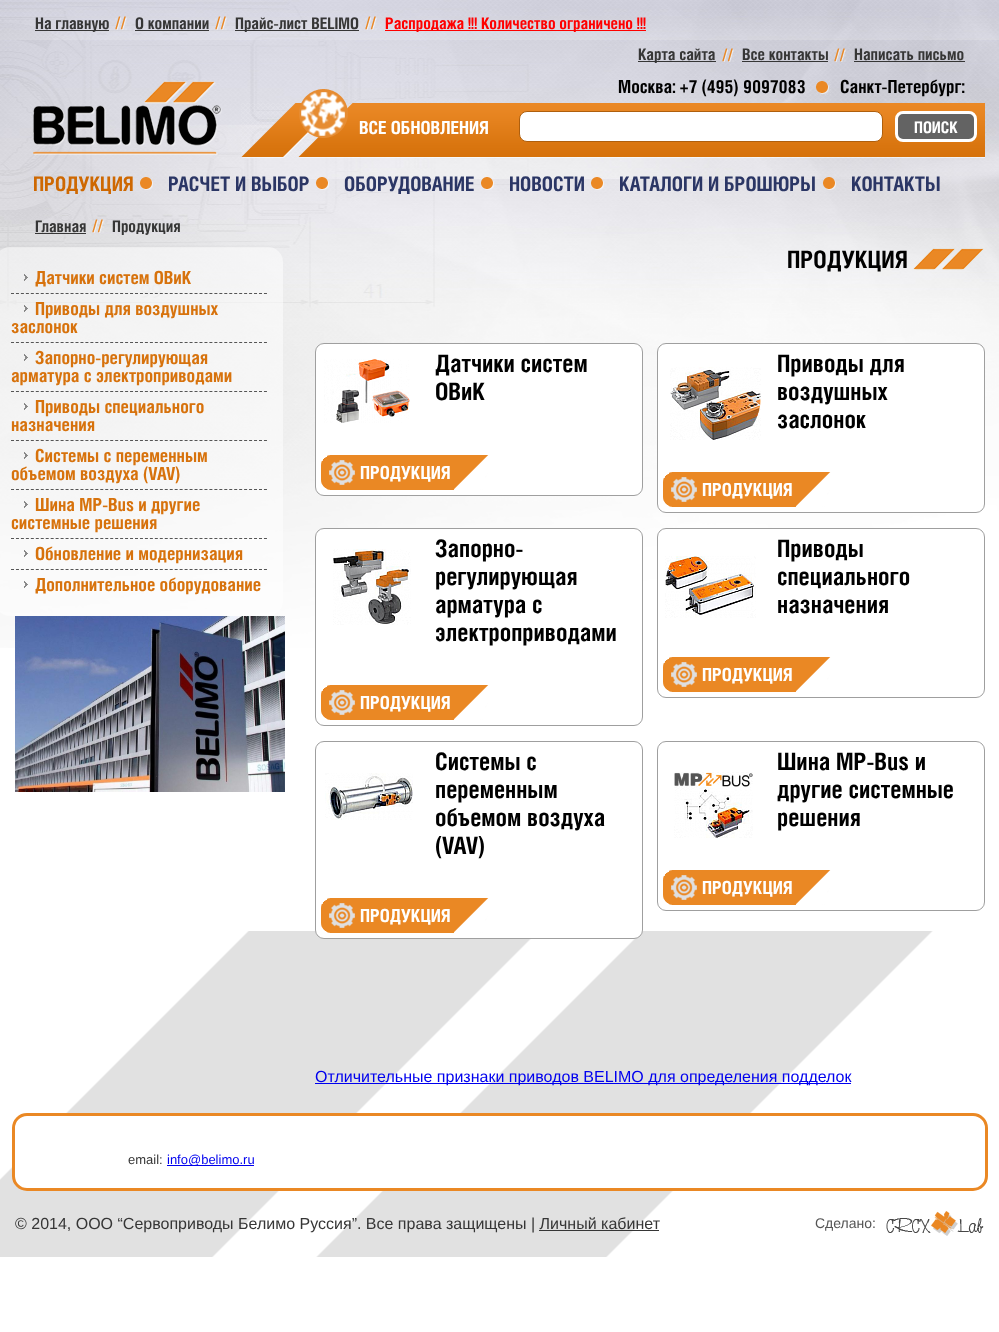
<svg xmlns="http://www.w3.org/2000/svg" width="999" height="1332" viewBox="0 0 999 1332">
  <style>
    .t1 { font: bold 16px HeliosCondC; fill: #363636; }
    .t2 { font: bold 16px HeliosCondC; fill: #f00; }
    .t3 { font: bold 16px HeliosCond; fill: #363636; }
    .t4 { font: bold 18px HeliosCondC; fill: #000; }
    .t5 { font: bold 18px HeliosCondC; fill: #fff; }
    .t6 { font: bold 16px HeliosCondC; fill: #fff; }
    .t7 { font: bold 20px HeliosCondC; fill: #ce6801; }
    .t8 { font: bold 20px HeliosCondC; fill: #2b3665; }
    .t9 { font: bold 18px HeliosCondC; fill: #d7720c; }
    .t10 { font: bold 24px HeliosCondC; fill: #000; }
    .t11 { font: 16px Liberation Sans; fill: #00e; }
    .t12 { font: 13px Liberation Sans; fill: #363636; }
    .t13 { font: 13px Liberation Sans; fill: #00e; }
    .t14 { font: 16px Liberation Sans; fill: #363636; }
    .t15 { font: 14px Liberation Sans; fill: #555; }
  </style>
  <rect width="100%" height="100%" fill="#fff"/>
  <image x="0" y="0" width="999" height="648" href="images/1.png"/>
  <image x="0" y="931" width="933" height="326" href="images/2.png"/>
  <image x="115" y="16" width="12" height="14" href="images/3.png"/>
  <rect x="35" y="30" width="74" height="1" fill="#363636"/>
  <text x="35" y="29" class="t1">На главную</text>
  <image x="215" y="16" width="12" height="14" href="images/4.png"/>
  <text x="135" y="29" class="t1">О компании</text>
  <rect x="135" y="30" width="74" height="1" fill="#363636"/>
  <image x="365" y="16" width="12" height="14" href="images/5.png"/>
  <rect x="235" y="30" width="124" height="1" fill="#363636"/>
  <text x="235" y="29" class="t1">Прайс-лист BELIMO</text>
  <rect x="385" y="30" width="261" height="1" fill="#f00"/>
  <text x="385" y="29" class="t2">Распродажа !!! Количество ограничено !!!</text>
  <image x="722" y="48" width="12" height="14" href="images/6.png"/>
  <rect x="638" y="61" width="78" height="1" fill="#363636"/>
  <text x="638" y="60" class="t3">Карта сайта</text>
  <image x="834" y="48" width="12" height="14" href="images/7.png"/>
  <text x="742" y="60" class="t3">Все контакты</text>
  <rect x="742" y="61" width="86" height="1" fill="#363636"/>
  <text x="854" y="60" class="t3">Написать письмо</text>
  <rect x="854" y="61" width="111" height="1" fill="#363636"/>
  <image x="33" y="81" width="189" height="74" href="images/8.png"/>
  <image x="241" y="103" width="744" height="55" href="images/9.png"/>
  <text x="618" y="93" class="t4">Москва: +7 (495) 9097083</text>
  <image x="816" y="81" width="15" height="14" href="images/10.png"/>
  <text x="840" y="93" class="t4">Санкт-Петербург:</text>
  <image x="299" y="89" width="49" height="49" href="images/11.png"/>
  <text x="359" y="134" class="t5">ВСЕ ОБНОВЛЕНИЯ</text>
  <rect x="519.5" y="111.5" width="363" height="30" rx="7.5" fill="#fff" stroke="#af5f0d"/>
  <rect x="896.5" y="112.5" width="79" height="28" rx="6.5" fill="#636363" stroke="#fff" stroke-width="3"/>
  <text x="914" y="133" class="t6">ПОИСК</text>
  <text x="33" y="191" class="t7">ПРОДУКЦИЯ</text>
  <image x="140" y="177" width="13" height="13" href="images/12.png"/>
  <text x="168" y="191" class="t8">РАСЧЕТ И ВЫБОР</text>
  <image x="316" y="177" width="13" height="13" href="images/13.png"/>
  <text x="344" y="191" class="t8">ОБОРУДОВАНИЕ</text>
  <image x="481" y="177" width="13" height="13" href="images/14.png"/>
  <text x="509" y="191" class="t8">НОВОСТИ</text>
  <image x="591" y="177" width="13" height="13" href="images/15.png"/>
  <text x="619" y="191" class="t8">КАТАЛОГИ И БРОШЮРЫ</text>
  <image x="823" y="177" width="13" height="13" href="images/16.png"/>
  <text x="851" y="191" class="t8">КОНТАКТЫ</text>
  <image x="92" y="219" width="12" height="14" href="images/17.png"/>
  <text x="35" y="232" class="t1">Главная</text>
  <rect x="35" y="233" width="51" height="1" fill="#363636"/>
  <text x="112" y="232" class="t1">Продукция</text>
  <image x="0" y="247" width="283" height="369" href="images/18.png"/>
  <image x="24" y="274" width="4" height="7" href="images/19.png"/>
  <text x="35" y="284" class="t9">Датчики систем ОВиК</text>
  <path d="M11 293.5H267" fill="none" stroke="#555" stroke-dasharray="3 1.96"/>
  <image x="24" y="305" width="4" height="7" href="images/20.png"/>
  <text x="35" y="315" class="t9">Приводы для воздушных</text>
  <text x="11" y="333" class="t9">заслонок</text>
  <path d="M11 342.5H267" fill="none" stroke="#555" stroke-dasharray="3 1.96"/>
  <image x="24" y="354" width="4" height="7" href="images/21.png"/>
  <text x="35" y="364" class="t9">Запорно-регулирующая</text>
  <text x="11" y="382" class="t9">арматура с электроприводами</text>
  <path d="M11 391.5H267" fill="none" stroke="#555" stroke-dasharray="3 1.96"/>
  <image x="24" y="403" width="4" height="7" href="images/22.png"/>
  <text x="35" y="413" class="t9">Приводы специального</text>
  <text x="11" y="431" class="t9">назначения</text>
  <path d="M11 440.5H267" fill="none" stroke="#555" stroke-dasharray="3 1.96"/>
  <image x="24" y="452" width="4" height="7" href="images/23.png"/>
  <text x="35" y="462" class="t9">Системы с переменным</text>
  <text x="11" y="480" class="t9">объемом воздуха (VAV)</text>
  <path d="M11 489.5H267" fill="none" stroke="#555" stroke-dasharray="3 1.96"/>
  <image x="24" y="501" width="4" height="7" href="images/24.png"/>
  <text x="35" y="511" class="t9">Шина MP-Bus и другие</text>
  <text x="11" y="529" class="t9">системные решения</text>
  <path d="M11 538.5H267" fill="none" stroke="#555" stroke-dasharray="3 1.96"/>
  <image x="24" y="550" width="4" height="7" href="images/25.png"/>
  <text x="35" y="560" class="t9">Обновление и модернизация</text>
  <path d="M11 569.5H267" fill="none" stroke="#555" stroke-dasharray="3 1.96"/>
  <image x="24" y="581" width="4" height="7" href="images/26.png"/>
  <text x="35" y="591" class="t9">Дополнительное оборудование</text>
  <image x="15" y="616" width="270" height="176" href="images/27.png"/>
  <image x="913" y="248" width="71" height="22" href="images/28.png"/>
  <text x="787" y="268" class="t10">ПРОДУКЦИЯ</text>
  <rect x="315.5" y="343.5" width="327" height="152" rx="8.5" fill="#fff" stroke="#9f9f9f"/>
  <image x="324" y="359" width="86" height="64" href="images/29.png"/>
  <text x="435" y="372" class="t10">Датчики систем</text>
  <text x="435" y="400" class="t10">ОВиК</text>
  <image x="321" y="455" width="168" height="35" href="images/30.png"/>
  <text x="360" y="479" class="t5">ПРОДУКЦИЯ</text>
  <rect x="657.5" y="343.5" width="327" height="169" rx="8.5" fill="#fff" stroke="#9f9f9f"/>
  <image x="670" y="367" width="91" height="73" href="images/31.png"/>
  <text x="777" y="372" class="t10">Приводы для</text>
  <text x="777" y="400" class="t10">воздушных</text>
  <text x="777" y="428" class="t10">заслонок</text>
  <image x="663" y="472" width="168" height="35" href="images/30.png"/>
  <text x="702" y="496" class="t5">ПРОДУКЦИЯ</text>
  <rect x="315.5" y="528.5" width="327" height="197" rx="8.5" fill="#fff" stroke="#9f9f9f"/>
  <image x="333" y="549" width="78" height="76" href="images/32.png"/>
  <text x="435" y="557" class="t10">Запорно-</text>
  <text x="435" y="585" class="t10">регулирующая</text>
  <text x="435" y="613" class="t10">арматура с</text>
  <text x="435" y="641" class="t10">электроприводами</text>
  <image x="321" y="685" width="168" height="35" href="images/30.png"/>
  <text x="360" y="709" class="t5">ПРОДУКЦИЯ</text>
  <rect x="657.5" y="528.5" width="327" height="169" rx="8.5" fill="#fff" stroke="#9f9f9f"/>
  <image x="665" y="556" width="91" height="62" href="images/33.png"/>
  <text x="777" y="557" class="t10">Приводы</text>
  <text x="777" y="585" class="t10">специального</text>
  <text x="777" y="613" class="t10">назначения</text>
  <image x="663" y="657" width="168" height="35" href="images/30.png"/>
  <text x="702" y="681" class="t5">ПРОДУКЦИЯ</text>
  <rect x="315.5" y="741.5" width="327" height="197" rx="8.5" fill="#fff" stroke="#9f9f9f"/>
  <image x="325" y="773" width="88" height="47" href="images/34.png"/>
  <text x="435" y="770" class="t10">Системы с</text>
  <text x="435" y="798" class="t10">переменным</text>
  <text x="435" y="826" class="t10">объемом воздуха</text>
  <text x="435" y="854" class="t10">(VAV)</text>
  <image x="321" y="898" width="168" height="35" href="images/30.png"/>
  <text x="360" y="922" class="t5">ПРОДУКЦИЯ</text>
  <rect x="657.5" y="741.5" width="327" height="169" rx="8.5" fill="none" stroke="#9f9f9f"/>
  <image x="674" y="772" width="79" height="66" href="images/35.png"/>
  <text x="777" y="770" class="t10">Шина MP-Bus и</text>
  <text x="777" y="798" class="t10">другие системные</text>
  <text x="777" y="826" class="t10">решения</text>
  <image x="663" y="870" width="168" height="35" href="images/30.png"/>
  <text x="702" y="894" class="t5">ПРОДУКЦИЯ</text>
  <rect x="315" y="1083" width="536" height="1" fill="#00e"/>
  <text x="315" y="1082" class="t11">Отличительные признаки приводов BELIMO для определения подделок</text>
  <rect x="13.5" y="1114.5" width="973" height="75" rx="13.5" fill="#fff" stroke="#ea8824" stroke-width="3"/>
  <text x="128" y="1164" class="t12">email:</text>
  <rect x="167" y="1165" width="87" height="1" fill="#00e"/>
  <text x="167" y="1164" class="t13">info@belimo.ru</text>
  <text x="15" y="1229" class="t14">© 2014, ООО “Сервоприводы Белимо Руссия”. Все права защищены | Личный кабинет</text>
  <rect x="539" y="1230" width="120" height="1" fill="#363636"/>
  <text x="815" y="1228" class="t15">Сделано:</text>
  <image x="886" y="1211" width="98" height="25" href="images/36.png"/>
</svg>
